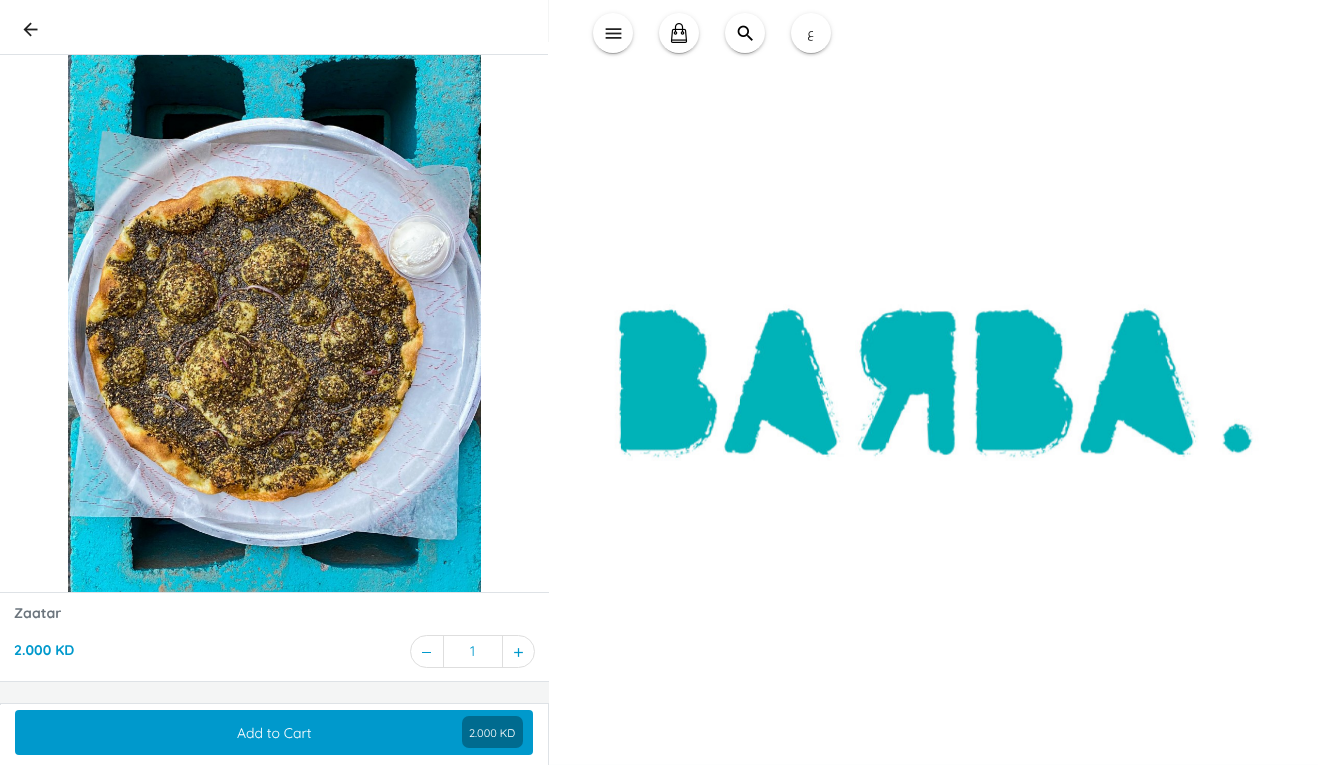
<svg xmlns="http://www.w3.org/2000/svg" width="1318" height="765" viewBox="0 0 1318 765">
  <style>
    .t1 { font: 12px Cairo; direction: rtl; fill: #212121; }
    .t2 { font: 300 14px Quicksand; fill: #6c757d; }
    .t3 { font: 300 14px Quicksand; fill: #09c; }
    .t4 { font: 300 14px 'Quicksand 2'; fill: #09c; }
    .t5 { font: 300 14px 'Quicksand 2'; fill: #fff; }
    .t6 { font: 300 11px 'Quicksand 2'; fill: #fff; }
  </style>
  <rect width="100%" height="100%" fill="#f4f5f5"/>
  <image x="549" y="0" width="769" height="765" href="images/1.png"/>
  <rect x="593" y="14" width="40" height="40" rx="20" fill="#0000001f" filter="blur(2.5px)"/>
  <rect x="593" y="15" width="40" height="40" rx="20" fill="#00000024" filter="blur(1px)"/>
  <rect x="595" y="18" width="36" height="36" rx="18" fill="#00000033" filter="blur(0.5px)"/>
  <circle cx="613" cy="33" r="20" fill="#fff"/>
  <image x="605" y="28" width="17" height="11" href="images/2.png"/>
  <rect x="659" y="14" width="40" height="40" rx="20" fill="#0000001f" filter="blur(2.5px)"/>
  <rect x="659" y="15" width="40" height="40" rx="20" fill="#00000024" filter="blur(1px)"/>
  <rect x="661" y="18" width="36" height="36" rx="18" fill="#00000033" filter="blur(0.5px)"/>
  <circle cx="679" cy="33" r="20" fill="#fff"/>
  <image x="670" y="23" width="18" height="20" href="images/3.png"/>
  <rect x="725" y="14" width="40" height="40" rx="20" fill="#0000001f" filter="blur(2.5px)"/>
  <rect x="725" y="15" width="40" height="40" rx="20" fill="#00000024" filter="blur(1px)"/>
  <rect x="727" y="18" width="36" height="36" rx="18" fill="#00000033" filter="blur(0.5px)"/>
  <circle cx="745" cy="33" r="20" fill="#fff"/>
  <image x="737" y="25" width="16" height="16" href="images/4.png"/>
  <rect x="791" y="14" width="40" height="40" rx="20" fill="#0000001f" filter="blur(2.5px)"/>
  <rect x="791" y="15" width="40" height="40" rx="20" fill="#00000024" filter="blur(1px)"/>
  <rect x="793" y="18" width="36" height="36" rx="18" fill="#00000033" filter="blur(0.5px)"/>
  <circle cx="811" cy="33" r="20" fill="#fff"/>
  <text x="814" y="37" class="t1">ع</text>
  <rect x="0" y="0" width="548" height="42" fill="#fff"/>
  <rect x="0" y="42" width="549" height="550" fill="#fff"/>
  <rect x="0" y="54" width="548" height="1" fill="#dee2e6"/>
  <image x="23" y="22" width="15" height="15" href="images/5.png"/>
  <image x="68" y="55" width="413" height="537" href="images/6.png"/>
  <rect x="0" y="593" width="549" height="88" fill="#fff"/>
  <rect x="0" y="592" width="549" height="1" fill="#dee2e6"/>
  <rect x="0" y="681" width="549" height="1" fill="#dee2e6"/>
  <text x="14" y="618" class="t2">Zaatar</text>
  <text x="14" y="655" class="t3">2.000 KD</text>
  <rect x="410.5" y="635.5" width="124" height="32" rx="16" fill="none" stroke="#dedede"/>
  <rect x="422" y="652" width="9" height="1" fill="#09c"/>
  <rect x="502" y="635" width="1" height="32" fill="#dedede"/>
  <rect x="443" y="635" width="1" height="32" fill="#dedede"/>
  <text x="470" y="656" class="t4">1</text>
  <image x="514" y="648" width="9" height="9" href="images/7.png"/>
  <rect x="1" y="704" width="547" height="1" fill="#fff"/>
  <rect x="0.5" y="703.5" width="548" height="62" fill="none" stroke="#dee2e6"/>
  <rect x="0" y="705" width="548" height="60" fill="#fff"/>
  <rect x="15" y="710" width="518" height="45" rx="4" fill="#09c"/>
  <text x="237" y="738" class="t5">Add to Cart</text>
  <rect x="462" y="716" width="61" height="32" rx="7" fill="#006b8f"/>
  <text x="469" y="737" class="t6">2.000 KD</text>
</svg>
